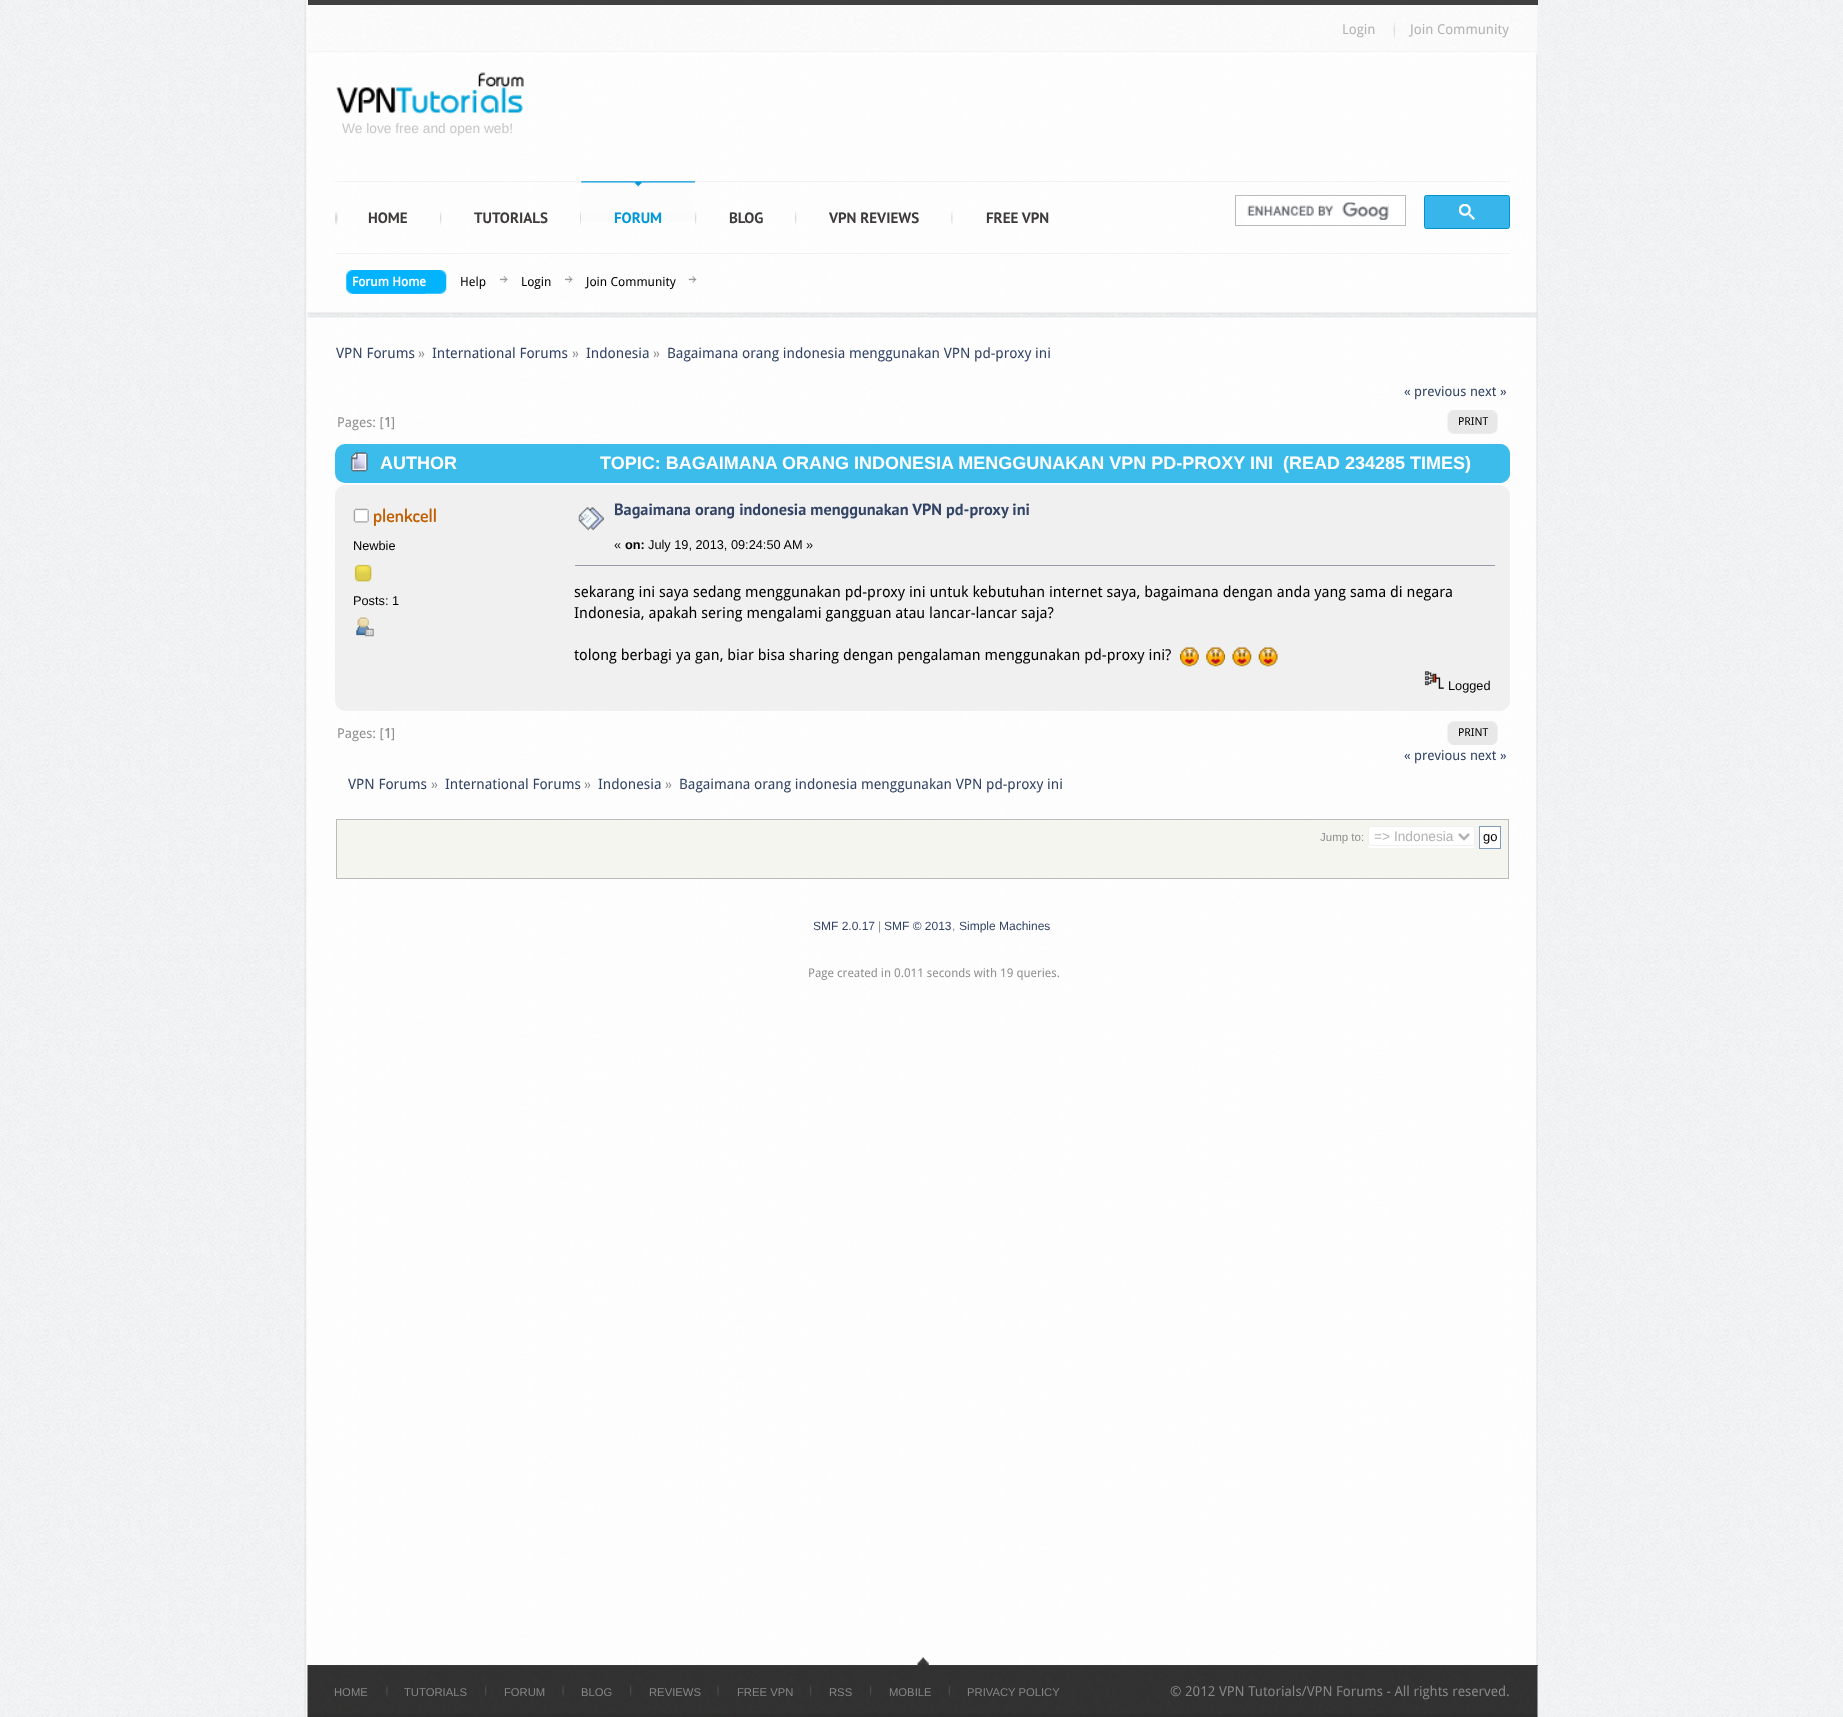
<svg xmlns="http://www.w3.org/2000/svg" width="1843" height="1717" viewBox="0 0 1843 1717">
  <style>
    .t1 { font: 13.75px Droid Sans; fill: #b3b3b3; }
    .t2 { font: 13.75px Liberation Sans; fill: #c7c7c7; }
    .t3 { font: bold 15px PT Sans; fill: #3e3b3b; }
    .t4 { font: bold 15px PT Sans; fill: #0098d8; }
    .t5 { font: bold 12.5px Droid Sans; fill: #fff; }
    .t6 { font: 12.5px Droid Sans; fill: #000; }
    .t7 { font: 14.25px Droid Sans; fill: #346; }
    .t8 { font: 14.25px Droid Sans; fill: #909091; }
    .t9 { font: 13.5px Droid Sans; fill: #346; }
    .t10 { font: 13.5px Droid Sans; fill: #909091; }
    .t11 { font: bold 13.5px Droid Sans; fill: #909091; }
    .t12 { font: 11px Droid Sans; fill: #000; }
    .t13 { font: bold 18px Liberation Sans; fill: #fff; }
    .t14 { font: 600 18px Dosis; fill: #c06002; }
    .t15 { font: 12.75px Liberation Sans; fill: #000; }
    .t16 { font: bold 16.25px PT Sans; fill: #346; }
    .t17 { font: bold 12.75px Liberation Sans; fill: #000; }
    .t18 { font: 15px Droid Sans; fill: #000; }
    .t19 { font: 11.5px Liberation Sans; fill: #909091; }
    .t20 { font: 13.75px Liberation Sans; fill: #b3b3b3; }
    .t21 { font: 13px Liberation Sans; fill: #000; }
    .t22 { font: 12px Liberation Sans; fill: #346; }
    .t23 { font: 12px Liberation Sans; fill: #909091; }
    .t24 { font: 12px Droid Sans; fill: #909091; }
    .t25 { font: 11.25px Liberation Sans; fill: #878787; }
    .t26 { font: 13.75px Droid Sans; fill: #878787; }
  </style>
  <rect width="100%" height="100%" fill="#fff"/>
  <image x="0" y="0" width="1843" height="1717" href="images/1.png"/>
  <image x="304" y="0" width="1234" height="1717" href="images/2.png"/>
  <image x="308" y="5" width="1230" height="48" href="images/3.png"/>
  <rect x="308" y="0" width="1230" height="5" fill="#404040"/>
  <rect x="308" y="51" width="1230" height="1" fill="#f5f5f5"/>
  <text x="1342" y="34" class="t1">Login</text>
  <image x="1393" y="21" width="3" height="17" href="images/4.png"/>
  <text x="1410" y="34" class="t1">Join Community</text>
  <rect x="419" y="53" width="1119" height="1" fill="#fff"/>
  <image x="336" y="72" width="188" height="42" href="images/5.png"/>
  <text x="342" y="133" class="t2">We love free and open web!</text>
  <rect x="465" y="254" width="946" height="1" fill="#fff"/>
  <rect x="335" y="181" width="1175" height="1" fill="#f2f2f2"/>
  <rect x="335" y="253" width="1175" height="1" fill="#f2f2f2"/>
  <image x="335" y="211" width="3" height="14" href="images/6.png"/>
  <text x="368" y="223" class="t3">HOME</text>
  <image x="440" y="211" width="2" height="14" href="images/7.png"/>
  <text x="474" y="223" class="t3">TUTORIALS</text>
  <image x="580" y="211" width="2" height="14" href="images/8.png"/>
  <image x="581" y="181" width="114" height="40" href="images/9.png"/>
  <text x="614" y="223" class="t4">FORUM</text>
  <image x="695" y="211" width="2" height="14" href="images/10.png"/>
  <text x="729" y="223" class="t3">BLOG</text>
  <image x="795" y="211" width="2" height="14" href="images/11.png"/>
  <text x="829" y="223" class="t3">VPN REVIEWS</text>
  <image x="951" y="211" width="2" height="14" href="images/12.png"/>
  <text x="986" y="223" class="t3">FREE VPN</text>
  <rect x="1244" y="196" width="161" height="29" fill="#fff"/>
  <rect x="1235.5" y="195.5" width="170" height="30" fill="none" stroke="#bbb"/>
  <image x="1247" y="202" width="142" height="18" href="images/13.png"/>
  <rect x="1424.5" y="195.5" width="85" height="33" rx="2" fill="#38b6ec" stroke="#0191cf"/>
  <image x="1459" y="204" width="16" height="16" href="images/14.png"/>
  <image x="307" y="312" width="1231" height="6" href="images/15.png"/>
  <image x="352" y="270" width="95" height="24" href="images/16.png"/>
  <image x="346" y="270" width="79" height="24" href="images/17.png"/>
  <text x="352" y="286" class="t5">Forum Home</text>
  <image x="500" y="276" width="8" height="7" href="images/18.png"/>
  <text x="460" y="286" class="t6">Help</text>
  <image x="565" y="276" width="8" height="7" href="images/19.png"/>
  <text x="521" y="286" class="t6">Login</text>
  <image x="688" y="276" width="9" height="7" href="images/20.png"/>
  <text x="586" y="286" class="t6">Join Community</text>
  <text x="336" y="358" class="t7">VPN Forums</text>
  <text x="418" y="358" class="t8">»</text>
  <text x="432" y="358" class="t7">International Forums</text>
  <text x="572" y="358" class="t8">»</text>
  <text x="586" y="358" class="t7">Indonesia</text>
  <text x="653" y="358" class="t8">»</text>
  <text x="667" y="358" class="t7">Bagaimana orang indonesia menggunakan VPN pd-proxy ini</text>
  <text x="1404" y="396" class="t9">« previous next »</text>
  <text x="337" y="427" class="t10">Pages: [</text>
  <text x="384" y="427" class="t11">1</text>
  <text x="391" y="427" class="t10">]</text>
  <rect x="1448" y="410" width="9" height="20" fill="#fff"/>
  <image x="1447" y="410" width="11" height="24" href="images/21.png"/>
  <rect x="1458" y="414" width="34" height="15" fill="#fff"/>
  <image x="1458" y="410" width="40" height="24" href="images/22.png"/>
  <text x="1458" y="425" class="t12">PRINT</text>
  <rect x="335" y="444" width="1175" height="39" rx="10" fill="#3cbcea"/>
  <rect x="346" y="444" width="1164" height="39" rx="10" fill="#3cbcea"/>
  <image x="351" y="452" width="17" height="20" href="images/23.png"/>
  <text x="380" y="469" class="t13">AUTHOR</text>
  <text x="600" y="469" class="t13" xml:space="preserve">TOPIC: BAGAIMANA ORANG INDONESIA MENGGUNAKAN VPN PD-PROXY INI  (READ 234285 TIMES)</text>
  <rect x="335" y="485" width="1175" height="226" rx="10" fill="#f0f0f0"/>
  <image x="353" y="508" width="16" height="15" href="images/24.png"/>
  <text x="373" y="522" class="t14">plenkcell</text>
  <text x="353" y="550" class="t15">Newbie</text>
  <image x="354" y="564" width="18" height="18" href="images/25.png"/>
  <text x="353" y="605" class="t15">Posts: 1</text>
  <image x="356" y="617" width="18" height="20" href="images/26.png"/>
  <image x="578" y="507" width="26" height="24" href="images/27.png"/>
  <text x="614" y="515" class="t16">Bagaimana orang indonesia menggunakan VPN pd-proxy ini</text>
  <text x="614" y="549" class="t15">«</text>
  <text x="625" y="549" class="t17">on:</text>
  <text x="648" y="549" class="t15">July 19, 2013, 09:24:50 AM »</text>
  <rect x="575" y="565" width="920" height="1" fill="#99a"/>
  <text x="574" y="597" class="t18">sekarang ini saya sedang menggunakan pd-proxy ini untuk kebutuhan internet saya, bagaimana dengan anda yang sama di negara</text>
  <text x="574" y="618" class="t18">Indonesia, apakah sering mengalami gangguan atau lancar-lancar saja?</text>
  <text x="574" y="660" class="t18">tolong berbagi ya gan, biar bisa sharing dengan pengalaman menggunakan pd-proxy ini?</text>
  <image x="1180" y="647" width="19" height="20" href="images/28.png"/>
  <image x="1206" y="647" width="19" height="20" href="images/29.png"/>
  <image x="1232" y="647" width="20" height="20" href="images/30.png"/>
  <image x="1258" y="647" width="20" height="20" href="images/31.png"/>
  <image x="1424" y="671" width="20" height="18" href="images/32.png"/>
  <text x="1448" y="690" class="t15">Logged</text>
  <text x="337" y="738" class="t10">Pages: [</text>
  <text x="384" y="738" class="t11">1</text>
  <text x="391" y="738" class="t10">]</text>
  <rect x="1448" y="725" width="9" height="20" fill="#fff"/>
  <image x="1447" y="721" width="11" height="24" href="images/33.png"/>
  <rect x="1458" y="724" width="36" height="21" fill="#fff"/>
  <image x="1458" y="721" width="40" height="24" href="images/34.png"/>
  <text x="1458" y="736" class="t12">PRINT</text>
  <text x="1404" y="760" class="t9">« previous next »</text>
  <text x="348" y="789" class="t7">VPN Forums</text>
  <text x="431" y="789" class="t8">»</text>
  <text x="445" y="789" class="t7">International Forums</text>
  <text x="584" y="789" class="t8">»</text>
  <text x="598" y="789" class="t7">Indonesia</text>
  <text x="665" y="789" class="t8">»</text>
  <text x="679" y="789" class="t7">Bagaimana orang indonesia menggunakan VPN pd-proxy ini</text>
  <rect x="336.5" y="819.5" width="1172" height="59" fill="#f5f5f0" stroke="#bbb"/>
  <text x="1320" y="841" class="t19">Jump to:</text>
  <path d="M1368 845V846C1368 847 1369 848 1370 848H1472C1474 848 1475 847 1475 846V844C1475 845 1474 846 1472 846H1370Z" fill="#fff"/>
  <rect x="1368.5" y="826.5" width="106" height="19" rx="2" fill="#fff" stroke="#f0f0f0"/>
  <path d="M1459 834L1464 839L1469 834" fill="none" stroke="#b3b3b3" stroke-width="2.5"/>
  <text x="1374" y="841" class="t20">=&gt; Indonesia</text>
  <rect x="1479.5" y="826.5" width="21" height="22" fill="#fff" stroke="#7f9db9"/>
  <text x="1483" y="841" class="t21">go</text>
  <text x="813" y="930" class="t22">SMF 2.0.17</text>
  <text x="878" y="930" class="t23">|</text>
  <text x="884" y="930" class="t22">SMF © 2013</text>
  <text x="952" y="930" class="t23">,</text>
  <text x="959" y="930" class="t22">Simple Machines</text>
  <text x="808" y="977" class="t24">Page created in 0.011 seconds with 19 queries.</text>
  <image x="307" y="1665" width="1231" height="52" href="images/35.png"/>
  <image x="307" y="1665" width="1231" height="52" href="images/36.png"/>
  <rect x="308" y="1665" width="1230" height="1" fill="#3a3938"/>
  <image x="917" y="1657" width="12" height="9" href="images/37.png"/>
  <text x="334" y="1696" class="t25">HOME</text>
  <image x="386" y="1685" width="2" height="12" href="images/38.png"/>
  <text x="404" y="1696" class="t25">TUTORIALS</text>
  <image x="485" y="1681" width="2" height="16" href="images/39.png"/>
  <text x="504" y="1696" class="t25">FORUM</text>
  <image x="562" y="1685" width="2" height="12" href="images/40.png"/>
  <text x="581" y="1696" class="t25">BLOG</text>
  <image x="630" y="1681" width="2" height="16" href="images/41.png"/>
  <text x="649" y="1696" class="t25">REVIEWS</text>
  <image x="717" y="1685" width="2" height="12" href="images/42.png"/>
  <text x="737" y="1696" class="t25">FREE VPN</text>
  <image x="810" y="1681" width="2" height="16" href="images/43.png"/>
  <text x="829" y="1696" class="t25">RSS</text>
  <image x="870" y="1681" width="2" height="16" href="images/44.png"/>
  <text x="889" y="1696" class="t25">MOBILE</text>
  <image x="948" y="1681" width="2" height="16" href="images/45.png"/>
  <text x="967" y="1696" class="t25">PRIVACY POLICY</text>
  <text x="1170" y="1696" class="t26">© 2012 VPN Tutorials/VPN Forums - All rights reserved.</text>
</svg>
